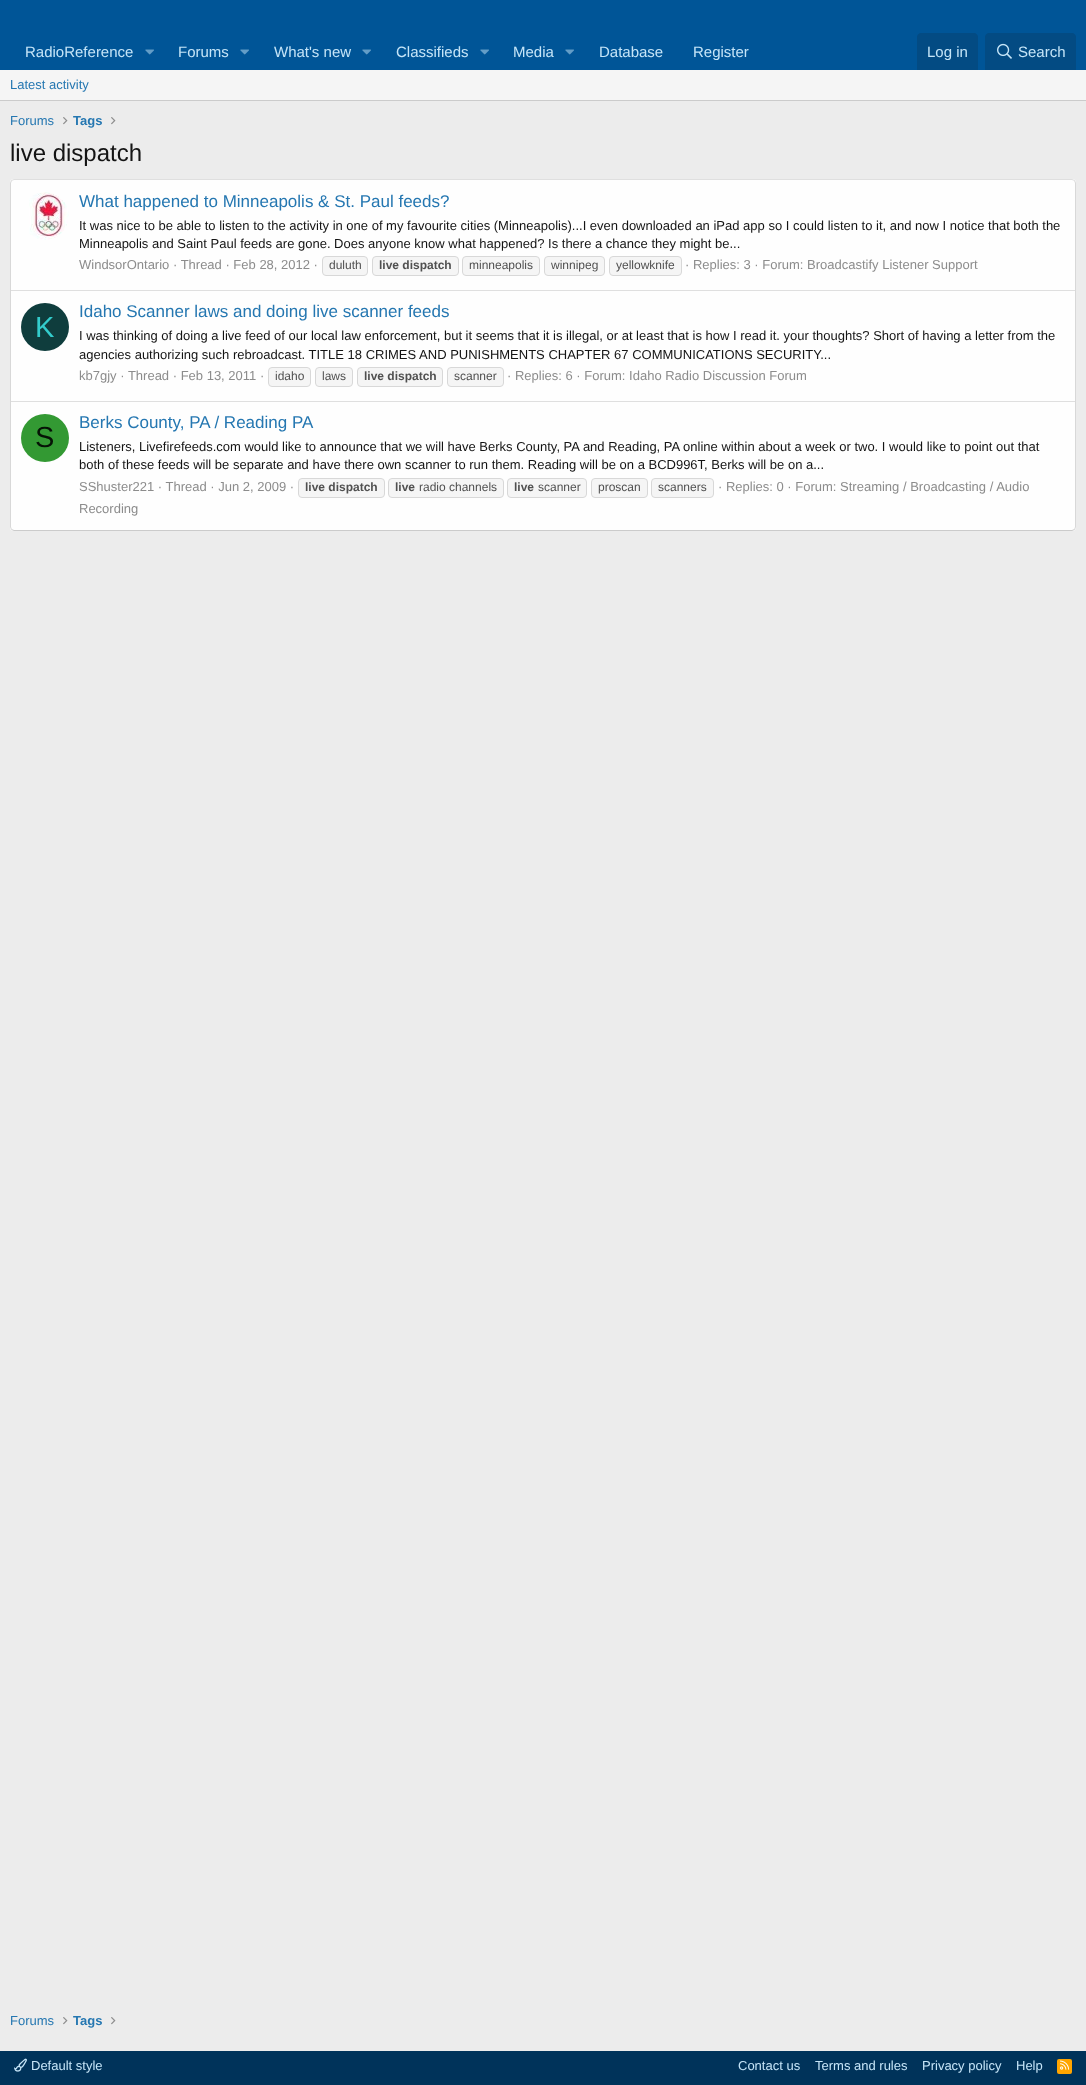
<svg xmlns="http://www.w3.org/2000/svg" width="1086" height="2085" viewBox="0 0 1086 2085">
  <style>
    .t1 { font: 15px Liberation Sans; fill: #c5e5f8; }
    .t2 { font: 13px Liberation Sans; fill: #2577b1; }
    .t3 { font: bold 13px Liberation Sans; fill: #2577b1; }
    .t4 { font: 24px Liberation Sans; fill: #141414; }
    .t5 { font: 17px Liberation Sans; fill: #2577b1; }
    .t6 { font: 13px Liberation Sans; fill: #141414; }
    .t7 { font: 13px Liberation Sans; fill: #8c8c8c; }
    .t8 { font: 12px Liberation Sans; fill: #505050; }
    .t9 { font: bold 12px Liberation Sans; fill: #505050; }
    .t10 { font: 29px Liberation Sans; fill: #3cc; }
    .t11 { font: 29px Liberation Sans; fill: #061306; }
    .t12 { font: 13px Liberation Sans; fill: #c5e5f8; }
  </style>
  <rect width="100%" height="100%" fill="#ececec"/>
  <rect x="0" y="0" width="1086" height="70" fill="#005597"/>
  <text x="25" y="57" class="t1">RadioReference</text>
  <image x="145" y="49" width="9" height="6" href="images/1.png"/>
  <text x="178" y="57" class="t1">Forums</text>
  <image x="240" y="49" width="9" height="6" href="images/1.png"/>
  <text x="274" y="57" class="t1">What's new</text>
  <image x="362" y="49" width="9" height="6" href="images/1.png"/>
  <text x="396" y="57" class="t1">Classifieds</text>
  <image x="480" y="49" width="9" height="6" href="images/1.png"/>
  <text x="513" y="57" class="t1">Media</text>
  <image x="565" y="49" width="9" height="6" href="images/1.png"/>
  <text x="599" y="57" class="t1">Database</text>
  <text x="693" y="57" class="t1">Register</text>
  <path d="M921 33H974C976 33 978 35 978 37V70H917V37C917 35 919 33 921 33Z" fill="#034b83"/>
  <text x="927" y="57" class="t1">Log in</text>
  <path d="M989 33H1072C1074 33 1076 35 1076 37V70H985V37C985 35 987 33 989 33Z" fill="#034b83"/>
  <image x="997" y="43" width="15" height="16" href="images/2.png"/>
  <text x="1018" y="57" class="t1">Search</text>
  <rect x="0" y="70" width="1086" height="30" fill="#f5f5f5"/>
  <rect x="0" y="100" width="1086" height="1" fill="#cbcbcb"/>
  <text x="10" y="89" class="t2">Latest activity</text>
  <text x="10" y="125" class="t2">Forums</text>
  <image x="63" y="117" width="5" height="8" href="images/3.png"/>
  <text x="73" y="125" class="t3">Tags</text>
  <image x="111" y="117" width="5" height="8" href="images/3.png"/>
  <text x="10" y="161" class="t4">live dispatch</text>
  <rect x="10" y="179" width="1066" height="352" rx="4" fill="#fefefe"/>
  <path d="M11.5 180.5L14 179.5H1072L1074.5 180.5" fill="none" stroke="#dfdfdf"/>
  <path d="M1074.5 180.5L1075.5 183V527L1074.5 529.5" fill="none" stroke="#d8d8d8"/>
  <path d="M1074.5 529.5L1072 530.5H14L11.5 529.5" fill="none" stroke="#cbcbcb"/>
  <path d="M11.5 529.5L10.5 527V183L11.5 180.5" fill="none" stroke="#d8d8d8"/>
  <image x="29" y="192" width="40" height="48" href="images/4.png"/>
  <text x="79" y="207" class="t5">What happened to Minneapolis &amp; St. Paul feeds?</text>
  <text x="79" y="230" class="t6">It was nice to be able to listen to the activity in one of my favourite cities (Minneapolis)...I even downloaded an iPad app so I could listen to it, and now I notice that both the</text>
  <text x="79" y="248" class="t6">Minneapolis and Saint Paul feeds are gone. Does anyone know what happened? Is there a chance they might be...</text>
  <text x="79" y="269" class="t7">WindsorOntario · Thread · Feb 28, 2012 ·</text>
  <rect x="322.5" y="256.5" width="45" height="19" rx="3.5" fill="#f5f5f5" stroke="#d8d8d8"/>
  <text x="329" y="269" class="t8">duluth</text>
  <rect x="372.5" y="256.5" width="86" height="19" rx="3.5" fill="#f5f5f5" stroke="#d8d8d8"/>
  <text x="379" y="269" class="t9">live dispatch</text>
  <rect x="462.5" y="256.5" width="77" height="19" rx="3.5" fill="#f5f5f5" stroke="#d8d8d8"/>
  <text x="469" y="269" class="t8">minneapolis</text>
  <rect x="544.5" y="256.5" width="60" height="19" rx="3.5" fill="#f5f5f5" stroke="#d8d8d8"/>
  <text x="551" y="269" class="t8">winnipeg</text>
  <rect x="609.5" y="256.5" width="72" height="19" rx="3.5" fill="#f5f5f5" stroke="#d8d8d8"/>
  <text x="616" y="269" class="t8">yellowknife</text>
  <text x="685" y="269" class="t7">· Replies: 3 · Forum: Broadcastify Listener Support</text>
  <rect x="11" y="290" width="1064" height="1" fill="#dfdfdf"/>
  <circle cx="45" cy="327" r="24" fill="#0f3d3d"/>
  <text x="35" y="337" class="t10">K</text>
  <text x="79" y="317" class="t5">Idaho Scanner laws and doing live scanner feeds</text>
  <text x="79" y="340" class="t6">I was thinking of doing a live feed of our local law enforcement, but it seems that it is illegal, or at least that is how I read it. your thoughts? Short of having a letter from the</text>
  <text x="79" y="359" class="t6">agencies authorizing such rebroadcast. TITLE 18 CRIMES AND PUNISHMENTS CHAPTER 67 COMMUNICATIONS SECURITY...</text>
  <text x="79" y="380" class="t7">kb7gjy · Thread · Feb 13, 2011 ·</text>
  <rect x="268.5" y="367.5" width="42" height="19" rx="3.5" fill="#f5f5f5" stroke="#d8d8d8"/>
  <text x="275" y="380" class="t8">idaho</text>
  <rect x="315.5" y="367.5" width="37" height="19" rx="3.5" fill="#f5f5f5" stroke="#d8d8d8"/>
  <text x="322" y="380" class="t8">laws</text>
  <rect x="357.5" y="367.5" width="85" height="19" rx="3.5" fill="#f5f5f5" stroke="#d8d8d8"/>
  <text x="364" y="380" class="t9">live dispatch</text>
  <rect x="447.5" y="367.5" width="56" height="19" rx="3.5" fill="#f5f5f5" stroke="#d8d8d8"/>
  <text x="454" y="380" class="t8">scanner</text>
  <text x="507" y="380" class="t7">· Replies: 6 · Forum: Idaho Radio Discussion Forum</text>
  <rect x="11" y="401" width="1064" height="1" fill="#dfdfdf"/>
  <circle cx="45" cy="438" r="24" fill="#393"/>
  <text x="35" y="447" class="t11">S</text>
  <text x="79" y="428" class="t5">Berks County, PA / Reading PA</text>
  <text x="79" y="451" class="t6">Listeners, Livefirefeeds.com would like to announce that we will have Berks County, PA and Reading, PA online within about a week or two. I would like to point out that</text>
  <text x="79" y="469" class="t6">both of these feeds will be separate and have there own scanner to run them. Reading will be on a BCD996T, Berks will be on a...</text>
  <text x="79" y="491" class="t7">SShuster221 · Thread · Jun 2, 2009 ·</text>
  <rect x="298.5" y="478.5" width="86" height="19" rx="3.5" fill="#f5f5f5" stroke="#d8d8d8"/>
  <text x="305" y="491" class="t9">live dispatch</text>
  <rect x="388.5" y="478.5" width="115" height="19" rx="3.5" fill="#f5f5f5" stroke="#d8d8d8"/>
  <text x="395" y="491" class="t9">live</text>
  <text x="419" y="491" class="t8">radio channels</text>
  <rect x="507.5" y="478.5" width="79" height="19" rx="3.5" fill="#f5f5f5" stroke="#d8d8d8"/>
  <text x="514" y="491" class="t9">live</text>
  <text x="538" y="491" class="t8">scanner</text>
  <rect x="591.5" y="478.5" width="56" height="19" rx="3.5" fill="#f5f5f5" stroke="#d8d8d8"/>
  <text x="598" y="491" class="t8">proscan</text>
  <rect x="651.5" y="478.5" width="62" height="19" rx="3.5" fill="#f5f5f5" stroke="#d8d8d8"/>
  <text x="658" y="491" class="t8">scanners</text>
  <text x="718" y="491" class="t7">· Replies: 0 · Forum: Streaming / Broadcasting / Audio</text>
  <text x="79" y="513" class="t7">Recording</text>
  <text x="10" y="2025" class="t2">Forums</text>
  <image x="63" y="2017" width="5" height="8" href="images/3.png"/>
  <text x="73" y="2025" class="t3">Tags</text>
  <image x="111" y="2017" width="5" height="8" href="images/3.png"/>
  <rect x="0" y="2051" width="1086" height="34" fill="#00335a"/>
  <image x="14" y="2058" width="13" height="14" href="images/5.png"/>
  <text x="31" y="2070" class="t12">Default style</text>
  <text x="738" y="2070" class="t12">Contact us</text>
  <text x="815" y="2070" class="t12">Terms and rules</text>
  <text x="922" y="2070" class="t12">Privacy policy</text>
  <text x="1016" y="2070" class="t12">Help</text>
  <rect x="1057" y="2059" width="15" height="15" rx="2" fill="#ffa500"/>
  <image x="1060" y="2060" width="10" height="10" href="images/6.png"/>
</svg>
